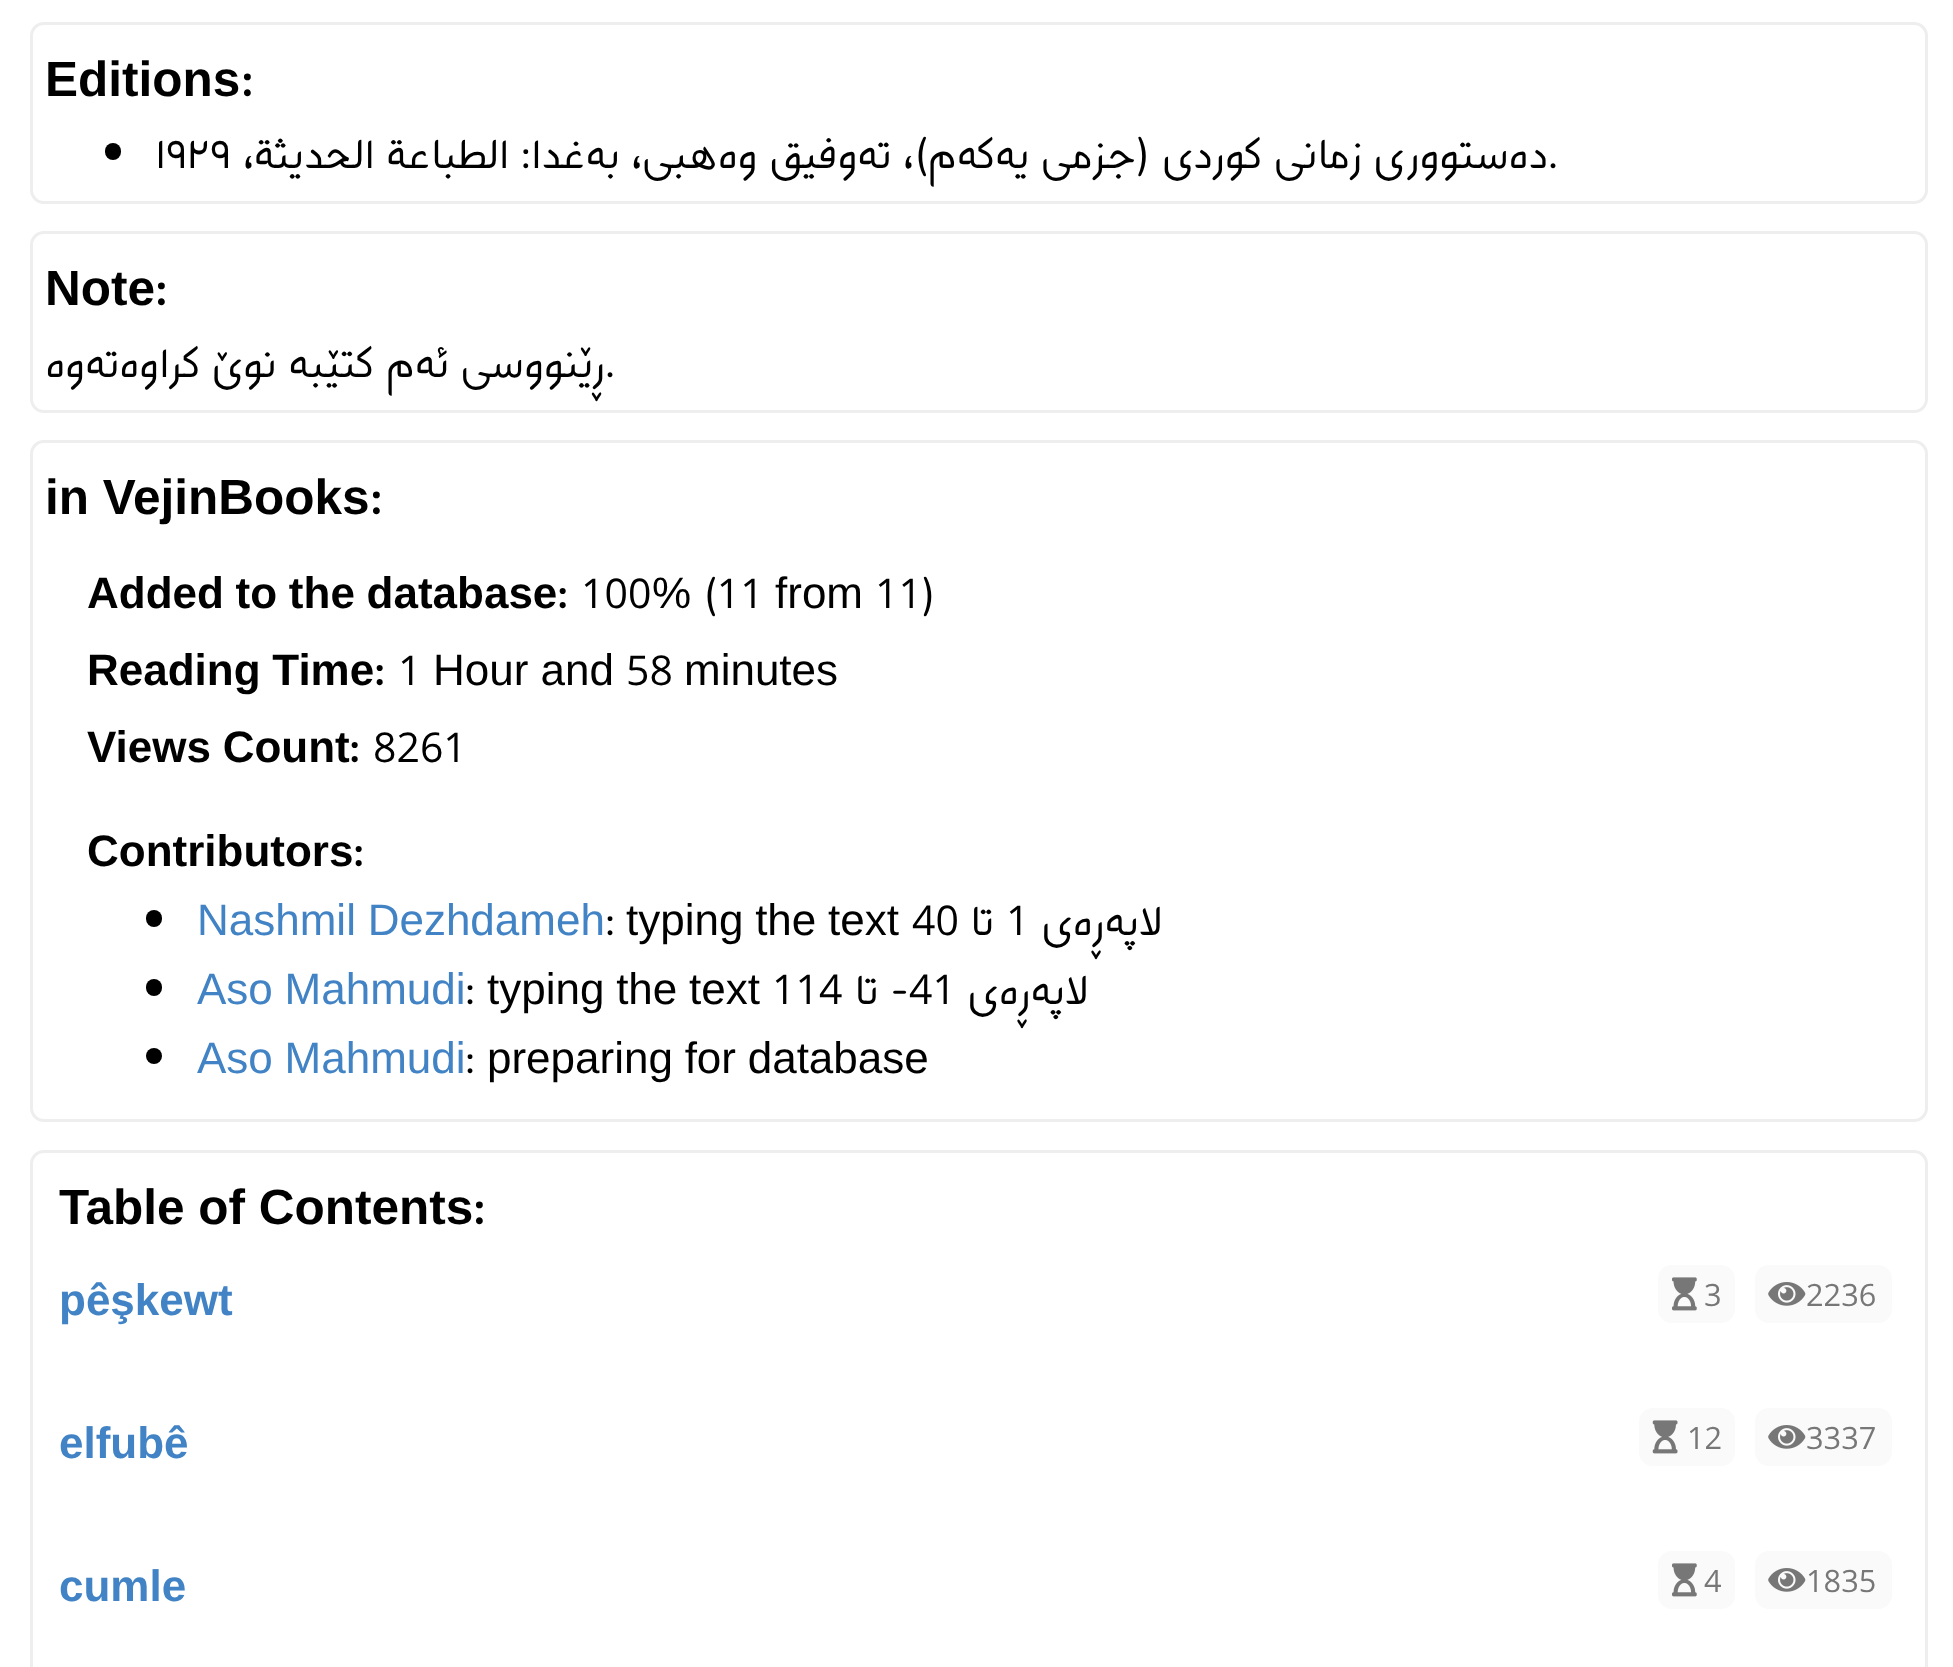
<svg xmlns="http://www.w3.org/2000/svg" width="1953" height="1667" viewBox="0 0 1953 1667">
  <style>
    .t1 { font: bold 49.5px Liberation Sans; fill: #000; }
    .t2 { font: bold 49.5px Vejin; fill: #000; }
    .t3 { font: 44px Vejin; fill: #000; }
    .t4 { font: 44px Vejin; direction: rtl; fill: #000; }
    .t5 { font: bold 44px Liberation Sans; fill: #000; }
    .t6 { font: bold 44px Vejin; fill: #000; }
    .t7 { font: 44px Liberation Sans; fill: #000; }
    .t8 { font: 44px Liberation Sans; fill: #4183c4; }
    .t9 { font: bold 44px Liberation Sans; fill: #4183c4; }
    .t10 { font: 33px Vejin; fill: #777; }
  </style>
  <rect width="100%" height="100%" fill="#fff"/>
  <rect x="31.5" y="23.5" width="1895" height="179" rx="12.5" fill="none" stroke="#eee" stroke-width="3"/>
  <text x="45" y="96" class="t1">Editions</text>
  <text x="241" y="96" class="t2">:</text>
  <rect x="105" y="143" width="16" height="17" rx="8" fill="#000"/>
  <text x="155" y="168" class="t3">۱۹۲۹</text>
  <text x="1548" y="168" class="t4">دەستووری زمانی کوردی (جزمی یەکەم)، تەوفیق وەهبی، بەغدا: الطباعة الحدیثة،</text>
  <text x="1548" y="168" class="t3">.</text>
  <rect x="31.5" y="232.5" width="1895" height="179" rx="12.5" fill="none" stroke="#eee" stroke-width="3"/>
  <text x="45" y="305" class="t1">Note</text>
  <text x="155" y="305" class="t2">:</text>
  <text x="605" y="377" class="t4">ڕێنووسی ئەم کتێبە نوێ کراوەتەوە</text>
  <text x="605" y="377" class="t3">.</text>
  <rect x="31.5" y="441.5" width="1895" height="679" rx="12.5" fill="none" stroke="#eee" stroke-width="3"/>
  <text x="45" y="514" class="t1">in VejinBooks</text>
  <text x="370" y="514" class="t2">:</text>
  <text x="87" y="608" word-spacing="-0.5" class="t5">Added to the database</text>
  <text x="557" y="608" class="t6">:</text>
  <text x="581" y="608" class="t3">100</text>
  <text x="652" y="608" class="t7">%</text>
  <text x="703" y="608" class="t3">(11</text>
  <text x="775" y="608" class="t7">from</text>
  <text x="875" y="608" class="t3">11)</text>
  <text x="87" y="685" word-spacing="-0.5" class="t5">Reading Time</text>
  <text x="374" y="685" class="t6">:</text>
  <text x="398" y="685" class="t3">1</text>
  <text x="433" y="685" class="t7">Hour and</text>
  <text x="626" y="685" class="t3">58</text>
  <text x="684" y="685" class="t7">minutes</text>
  <text x="87" y="762" word-spacing="-0.5" class="t5">Views Count</text>
  <text x="349" y="762" class="t6">:</text>
  <text x="373" y="762" class="t3">8261</text>
  <text x="87" y="866" class="t5">Contributors</text>
  <text x="353" y="866" class="t6">:</text>
  <rect x="146" y="910" width="16" height="17" rx="8" fill="#000"/>
  <text x="197" y="935" word-spacing="-0.5" class="t8">Nashmil Dezhdameh</text>
  <text x="605" y="935" class="t3">:</text>
  <text x="626" y="935" word-spacing="-0.5" class="t7">typing the text</text>
  <text x="912" y="935" class="t3">40</text>
  <text x="994" y="935" class="t4">تا</text>
  <text x="1006" y="935" class="t3">1</text>
  <text x="1162" y="935" class="t4">لاپەڕەی</text>
  <rect x="146" y="979" width="16" height="17" rx="8" fill="#000"/>
  <text x="197" y="1004" word-spacing="-0.5" class="t8">Aso Mahmudi</text>
  <text x="465" y="1004" class="t3">:</text>
  <text x="487" y="1004" word-spacing="-0.5" class="t7">typing the text</text>
  <text x="772" y="1004" class="t3">114</text>
  <text x="909" y="1004" class="t4">- تا</text>
  <text x="909" y="1004" class="t3">41</text>
  <text x="1088" y="1004" class="t4">لاپەڕەی</text>
  <circle cx="154" cy="1056" r="8" fill="#000"/>
  <text x="197" y="1073" word-spacing="-0.5" class="t8">Aso Mahmudi</text>
  <text x="465" y="1073" class="t3">:</text>
  <text x="487" y="1073" word-spacing="-0.5" class="t7">preparing for database</text>
  <rect x="31.5" y="1151.5" width="1895" height="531" rx="12.5" fill="none" stroke="#eee" stroke-width="3"/>
  <text x="59" y="1224" class="t1">Table of Contents</text>
  <text x="473" y="1224" class="t2">:</text>
  <text x="59" y="1315" class="t9">pêşkewt</text>
  <rect x="1658" y="1265" width="77" height="58" rx="14" fill="#fafafa"/>
  <image x="1672" y="1277" width="25" height="34" href="images/1.png"/>
  <text x="1704" y="1306" class="t10">3</text>
  <rect x="1755" y="1265" width="137" height="58" rx="14" fill="#fafafa"/>
  <image x="1768" y="1282" width="38" height="24" href="images/2.png"/>
  <text x="1806" y="1306" class="t10">2236</text>
  <text x="59" y="1458" class="t9">elfubê</text>
  <rect x="1639" y="1408" width="96" height="58" rx="14" fill="#fafafa"/>
  <image x="1652" y="1420" width="26" height="34" href="images/3.png"/>
  <text x="1687" y="1449" class="t10">12</text>
  <rect x="1755" y="1408" width="137" height="58" rx="14" fill="#fafafa"/>
  <image x="1768" y="1425" width="38" height="24" href="images/2.png"/>
  <text x="1806" y="1449" class="t10">3337</text>
  <text x="59" y="1601" class="t9">cumle</text>
  <rect x="1658" y="1551" width="77" height="58" rx="14" fill="#fafafa"/>
  <image x="1672" y="1563" width="25" height="34" href="images/1.png"/>
  <text x="1704" y="1592" class="t10">4</text>
  <rect x="1755" y="1551" width="137" height="58" rx="14" fill="#fafafa"/>
  <image x="1768" y="1568" width="38" height="24" href="images/2.png"/>
  <text x="1806" y="1592" class="t10">1835</text>
</svg>
